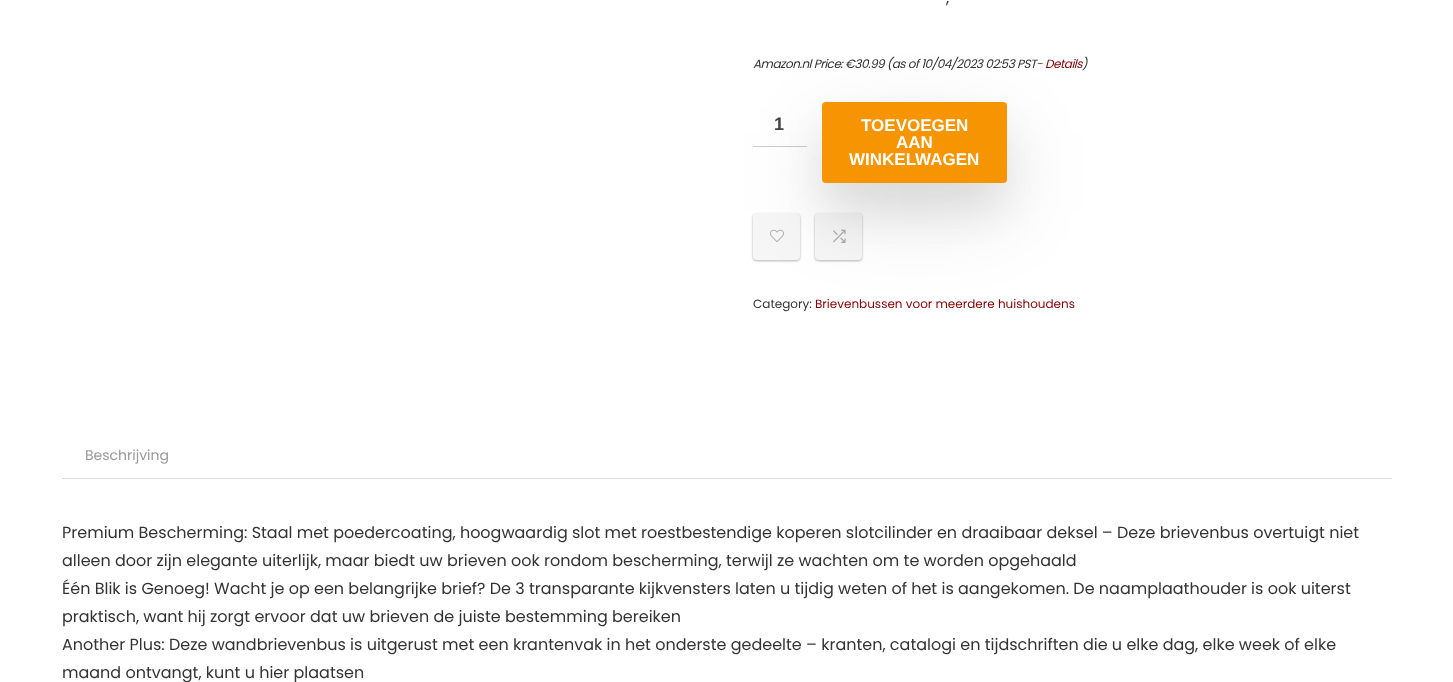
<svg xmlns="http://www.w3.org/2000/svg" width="1453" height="682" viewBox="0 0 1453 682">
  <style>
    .t1 { font: 16px Poppins; fill: #333; }
    .t2 { font: italic 12px Poppins; letter-spacing: -0.5px; fill: #333; }
    .t3 { font: italic 12px Poppins; letter-spacing: -0.5px; fill: #820000; }
    .t4 { font: bold 18px Liberation Sans; fill: #444; }
    .t5 { font: bold 17px Liberation Sans; fill: #fff; }
    .t6 { font: 12px Poppins; fill: #333; }
    .t7 { font: 12px Poppins; fill: #820000; }
    .t8 { font: 14px Poppins; fill: #999; }
  </style>
  <rect width="100%" height="100%" fill="#fff"/>
  <text x="946" y="3" class="t1">,</text>
  <text x="753" y="68" class="t2">Amazon.nl Price: €30.99 (as of 10/04/2023 02:53 PST-</text>
  <text x="1045" y="68" class="t3">Details</text>
  <text x="1082" y="68" class="t2">)</text>
  <rect x="753" y="146" width="54" height="1" fill="#ccc"/>
  <text x="774" y="130" class="t4">1</text>
  <rect x="753" y="214" width="47" height="47" rx="4" fill="#00000014" filter="blur(1px)"/>
  <rect x="753" y="214" width="47" height="47" rx="4" fill="#3c40434d" filter="blur(1px)"/>
  <rect x="753" y="213" width="47" height="47" rx="4" fill="#f6f6f6"/>
  <image x="770" y="229" width="14" height="13" href="images/1.png"/>
  <rect x="815" y="214" width="47" height="47" rx="4" fill="#00000014" filter="blur(1px)"/>
  <rect x="815" y="214" width="47" height="47" rx="4" fill="#3c40434d" filter="blur(1px)"/>
  <rect x="815" y="213" width="47" height="47" rx="4" fill="#f6f6f6"/>
  <rect x="822" y="132" width="185" height="81" rx="4" fill="#0000001f" filter="blur(40px)"/>
  <rect x="822" y="130" width="185" height="81" rx="4" fill="#0000000f" filter="blur(19px)"/>
  <rect x="822" y="102" width="185" height="81" rx="4" fill="#f79401"/>
  <text x="861" y="131" class="t5">TOEVOEGEN</text>
  <text x="896" y="148" class="t5">AAN</text>
  <text x="849" y="165" class="t5">WINKELWAGEN</text>
  <image x="833" y="229" width="13" height="14" href="images/2.png"/>
  <text x="753" y="308" class="t6">Category:</text>
  <text x="815" y="308" class="t7">Brievenbussen voor meerdere huishoudens</text>
  <text x="85" y="460" class="t8">Beschrijving</text>
  <rect x="62" y="478" width="1330" height="1" fill="#e0dadf"/>
  <text x="62" y="538" class="t1">Premium Bescherming: Staal met poedercoating, hoogwaardig slot met roestbestendige koperen slotcilinder en draaibaar deksel – Deze brievenbus overtuigt niet</text>
  <text x="62" y="566" class="t1">alleen door zijn elegante uiterlijk, maar biedt uw brieven ook rondom bescherming, terwijl ze wachten om te worden opgehaald</text>
  <text x="62" y="594" class="t1">Één Blik is Genoeg! Wacht je op een belangrijke brief? De 3 transparante kijkvensters laten u tijdig weten of het is aangekomen. De naamplaathouder is ook uiterst</text>
  <text x="62" y="622" class="t1">praktisch, want hij zorgt ervoor dat uw brieven de juiste bestemming bereiken</text>
  <text x="62" y="650" class="t1">Another Plus: Deze wandbrievenbus is uitgerust met een krantenvak in het onderste gedeelte – kranten, catalogi en tijdschriften die u elke dag, elke week of elke</text>
  <text x="62" y="678" class="t1">maand ontvangt, kunt u hier plaatsen</text>
</svg>
